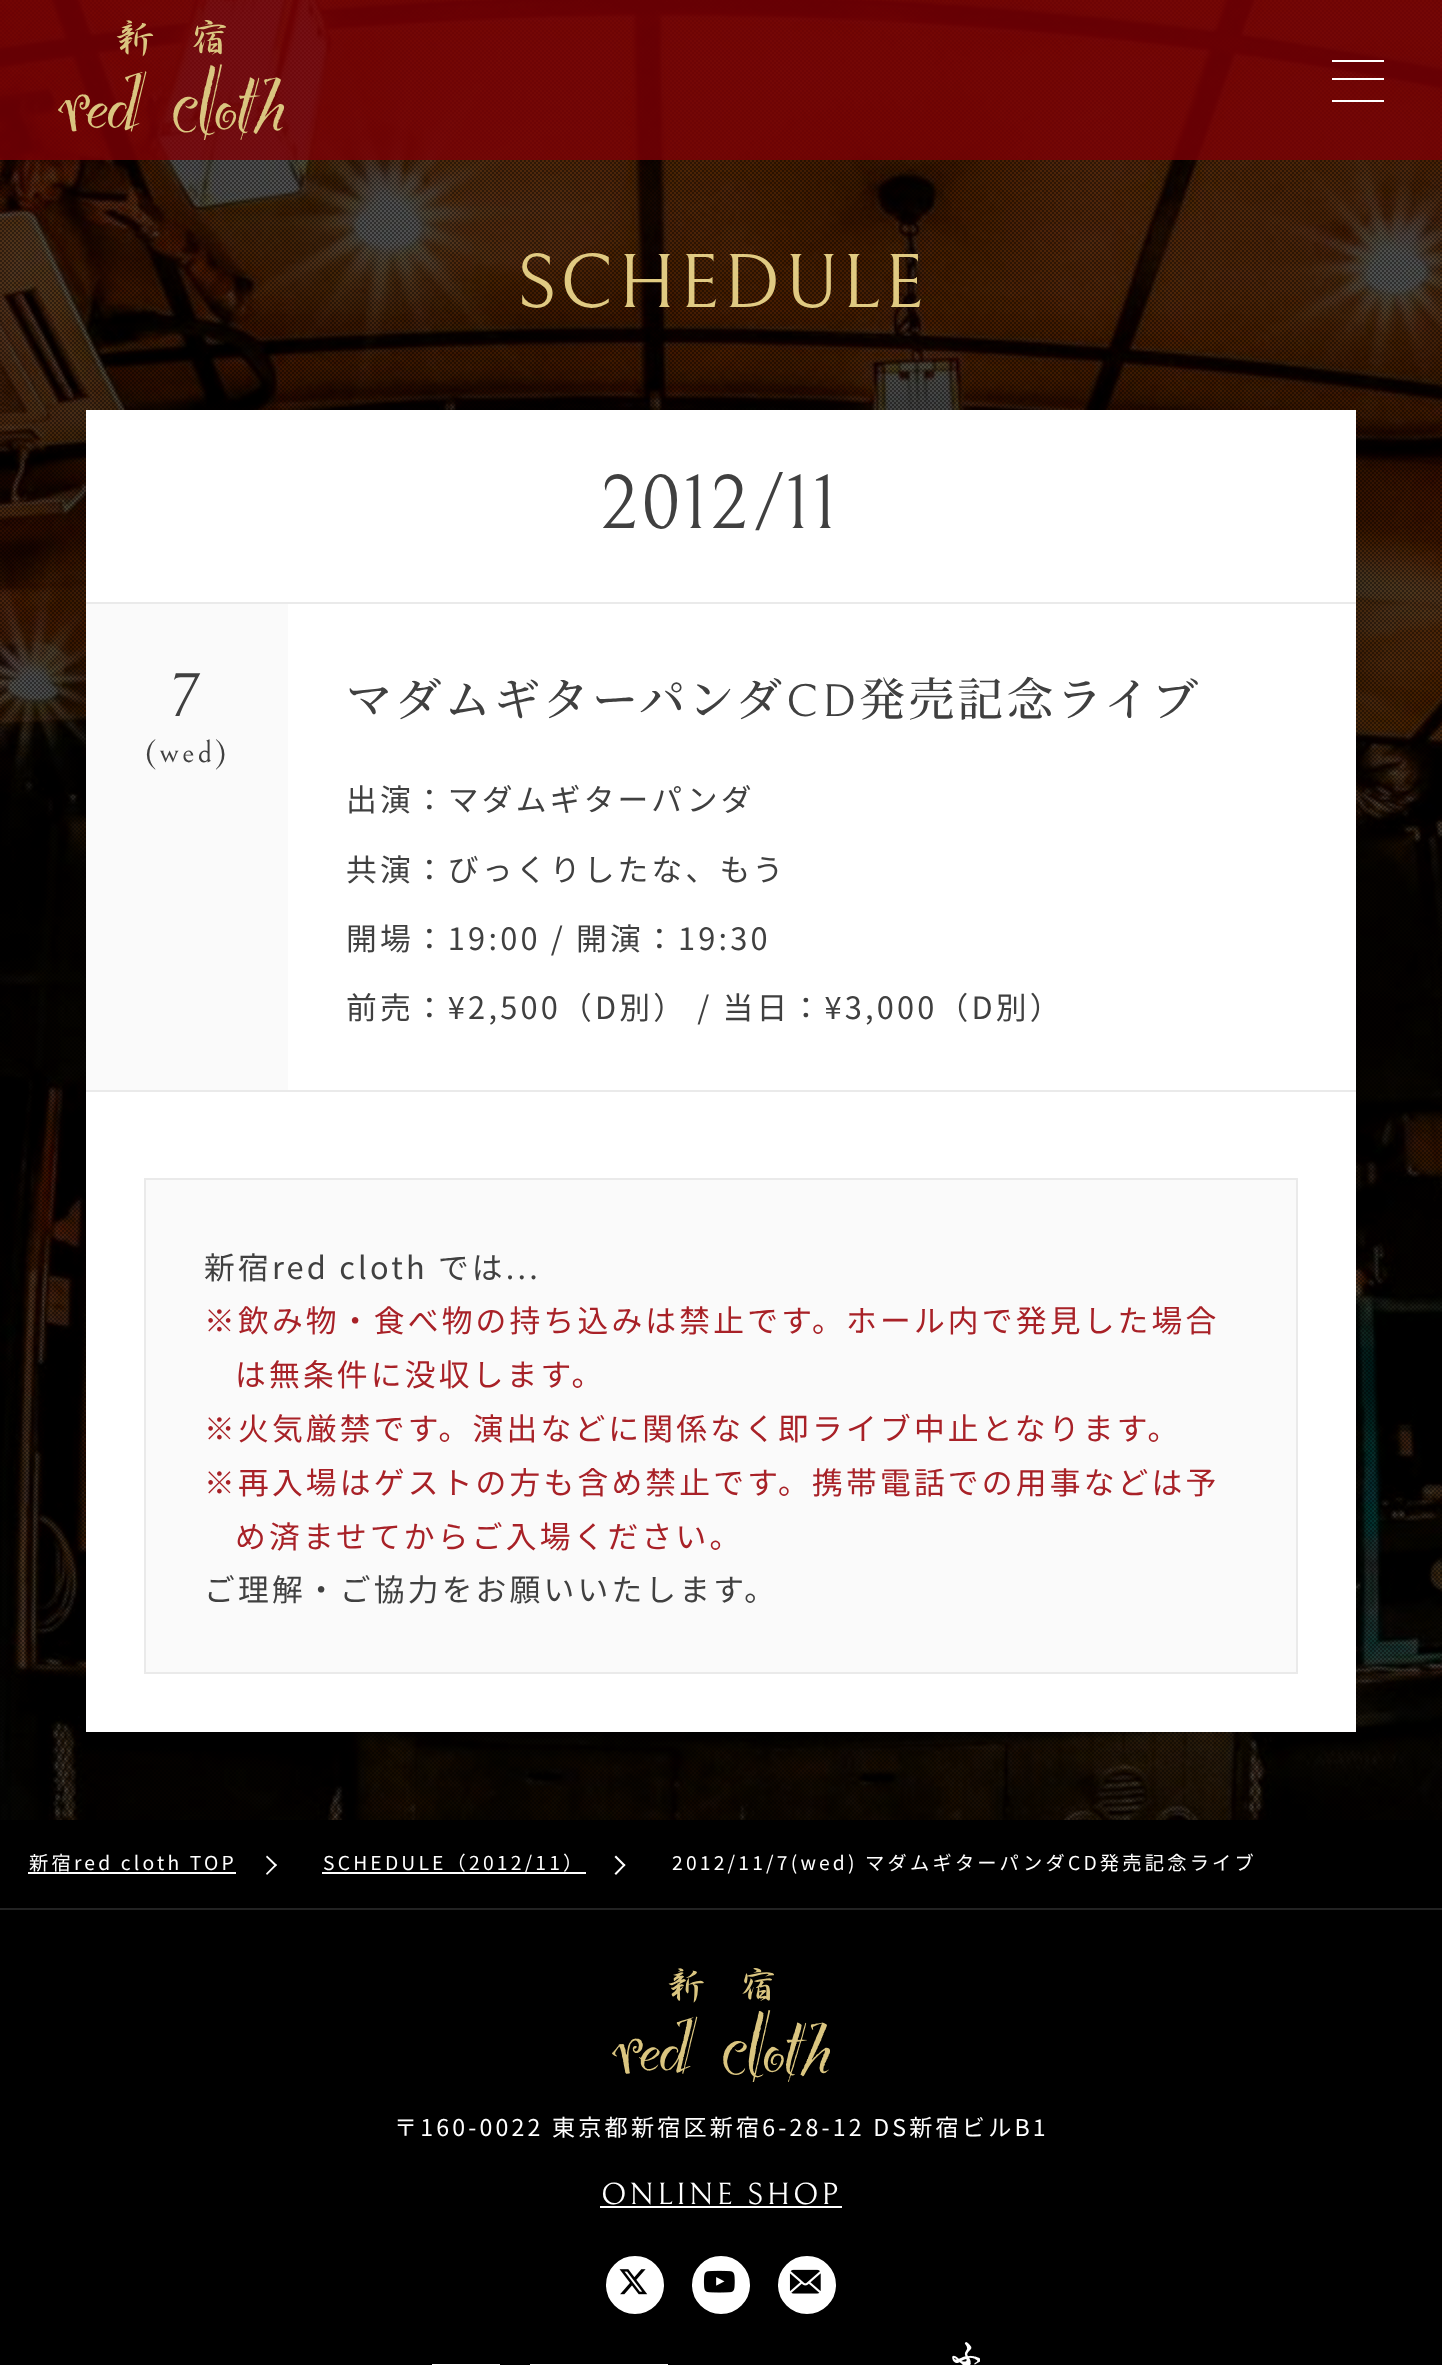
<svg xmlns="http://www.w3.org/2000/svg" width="1442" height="2365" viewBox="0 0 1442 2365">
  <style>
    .t1 { font: 77px Bellefair; letter-spacing: 3.2px; fill: #e0ca82; }
    .t2 { font: 77px Bellefair; letter-spacing: 3.2px; fill: #404040; }
    .t3 { font: 62px Bellefair; letter-spacing: 3.2px; fill: #404040; }
    .t4 { font: 30.75px Bellefair; letter-spacing: 3.2px; fill: #404040; }
    .t5 { font: 500 46.1px Noto Serif JP; letter-spacing: 3.2px; fill: #404040; }
    .t6 { font: 46.1px Bellefair; letter-spacing: 3.2px; fill: #404040; }
    .t7 { font: 30.75px Noto Sans JP; letter-spacing: 3.2px; fill: #404040; }
    .t8 { font: 30.75px Noto Sans JP; letter-spacing: 3.2px; fill: #a82127; }
    .t9 { font: 19.25px Noto Sans JP; letter-spacing: 3.2px; fill: #fff; }
    .t10 { font: 23.1px Noto Sans JP; letter-spacing: 3.2px; fill: #fff; }
    .t11 { font: 30.75px Bellefair; letter-spacing: 3.2px; fill: #fff; }
  </style>
  <rect width="100%" height="100%" fill="#fff"/>
  <image x="0" y="0" width="1442" height="1820" href="images/2.png"/>
  <image x="0" y="0" width="1442" height="1820" href="images/3.png"/>
  <rect x="0" y="0" width="1442" height="160" fill="#7e0005cc"/>
  <image x="58" y="20" width="226" height="120" href="images/1.png"/>
  <rect x="1332" y="60" width="52" height="2" fill="#fff"/>
  <rect x="1332" y="78" width="52" height="2" fill="#fff"/>
  <rect x="1332" y="100" width="52" height="2" fill="#fff"/>
  <text x="516" y="307" class="t1">SCHEDULE</text>
  <rect x="0" y="1820" width="1442" height="88" fill="#000"/>
  <path d="M266 1857L267 1855.5L277 1865L275.5 1866.5Z" fill="#fff"/>
  <path d="M614.5 1857L616 1855.5L625.5 1865L624 1866.5Z" fill="#fff"/>
  <rect x="86" y="410" width="1270" height="1322" fill="#0000004d" filter="blur(43.5px)"/>
  <rect x="86" y="410" width="1270" height="1322" fill="#fff"/>
  <text x="601" y="528" class="t2">2012/11</text>
  <rect x="86" y="602" width="1270" height="2" fill="#eaeaea"/>
  <rect x="86" y="1090" width="1270" height="2" fill="#eaeaea"/>
  <rect x="86" y="604" width="202" height="486" fill="#fafafa"/>
  <text x="172" y="716" class="t3">7</text>
  <text x="145" y="762" class="t4">(wed)</text>
  <text x="346" y="716" class="t5">マダムギターパンダ</text>
  <text x="786" y="716" class="t6">CD</text>
  <text x="859" y="716" class="t5">発売記念ライブ</text>
  <text x="346" y="811" class="t7">出演：マダムギターパンダ</text>
  <text x="346" y="881" class="t7">共演：びっくりしたな、もう</text>
  <text x="346" y="950" class="t7">開場：19:00 / 開演：19:30</text>
  <text x="346" y="1019" class="t7">前売：¥2,500（D別） / 当日：¥3,000（D別）</text>
  <rect x="145" y="1179" width="1152" height="494" fill="#fafafa" stroke="#eaeaea" stroke-width="2"/>
  <text x="204" y="1279" class="t7">新宿red cloth では...</text>
  <text x="204" y="1332" class="t8">※飲み物・食べ物の持ち込みは禁止です。ホール内で発見した場合</text>
  <text x="235" y="1386" class="t8">は無条件に没収します。</text>
  <text x="204" y="1440" class="t8">※火気厳禁です。演出などに関係なく即ライブ中止となります。</text>
  <text x="204" y="1494" class="t8">※再入場はゲストの方も含め禁止です。携帯電話での用事などは予</text>
  <text x="235" y="1548" class="t8">め済ませてからご入場ください。</text>
  <text x="204" y="1601" class="t7">ご理解・ご協力をお願いいたします。</text>
  <rect x="0" y="1908" width="1442" height="2" fill="#222"/>
  <text x="29" y="1870" class="t9">新宿red cloth TOP</text>
  <rect x="28" y="1872" width="208" height="2" fill="#fff"/>
  <path d="M266 1873.5L275.5 1864L277 1865L267 1875Z" fill="#fff"/>
  <rect x="322" y="1872" width="264" height="2" fill="#fff"/>
  <text x="323" y="1870" class="t9">SCHEDULE（2012/11）</text>
  <path d="M614.5 1873.5L624 1864L625.5 1865L616 1875Z" fill="#fff"/>
  <text x="672" y="1870" class="t9">2012/11/7(wed) マダムギターパンダCD発売記念ライブ</text>
  <rect x="0" y="1910" width="1442" height="455" fill="#000"/>
  <image x="612" y="1968" width="218" height="114" href="images/4.png"/>
  <text x="394" y="2136" class="t10">〒160-0022 東京都新宿区新宿6-28-12 DS新宿ビルB1</text>
  <text x="601" y="2204" class="t11">ONLINE SHOP</text>
  <rect x="600" y="2206" width="242" height="2" fill="#fff"/>
  <circle cx="635" cy="2285" r="28" fill="#fff" stroke="#fff" stroke-width="2"/>
  <image x="619" y="2269" width="29" height="26" href="images/5.png"/>
  <circle cx="721" cy="2285" r="28" fill="#fff" stroke="#fff" stroke-width="2"/>
  <image x="703" y="2270" width="32" height="23" href="images/6.png"/>
  <circle cx="807" cy="2285" r="28" fill="#fff" stroke="#fff" stroke-width="2"/>
  <image x="789" y="2269" width="32" height="25" href="images/7.png"/>
  <rect x="432" y="2364" width="68" height="1" fill="#fff"/>
  <rect x="530" y="2364" width="138" height="1" fill="#fff"/>
  <image x="952" y="2342" width="28" height="23" href="images/8.png"/>
</svg>
